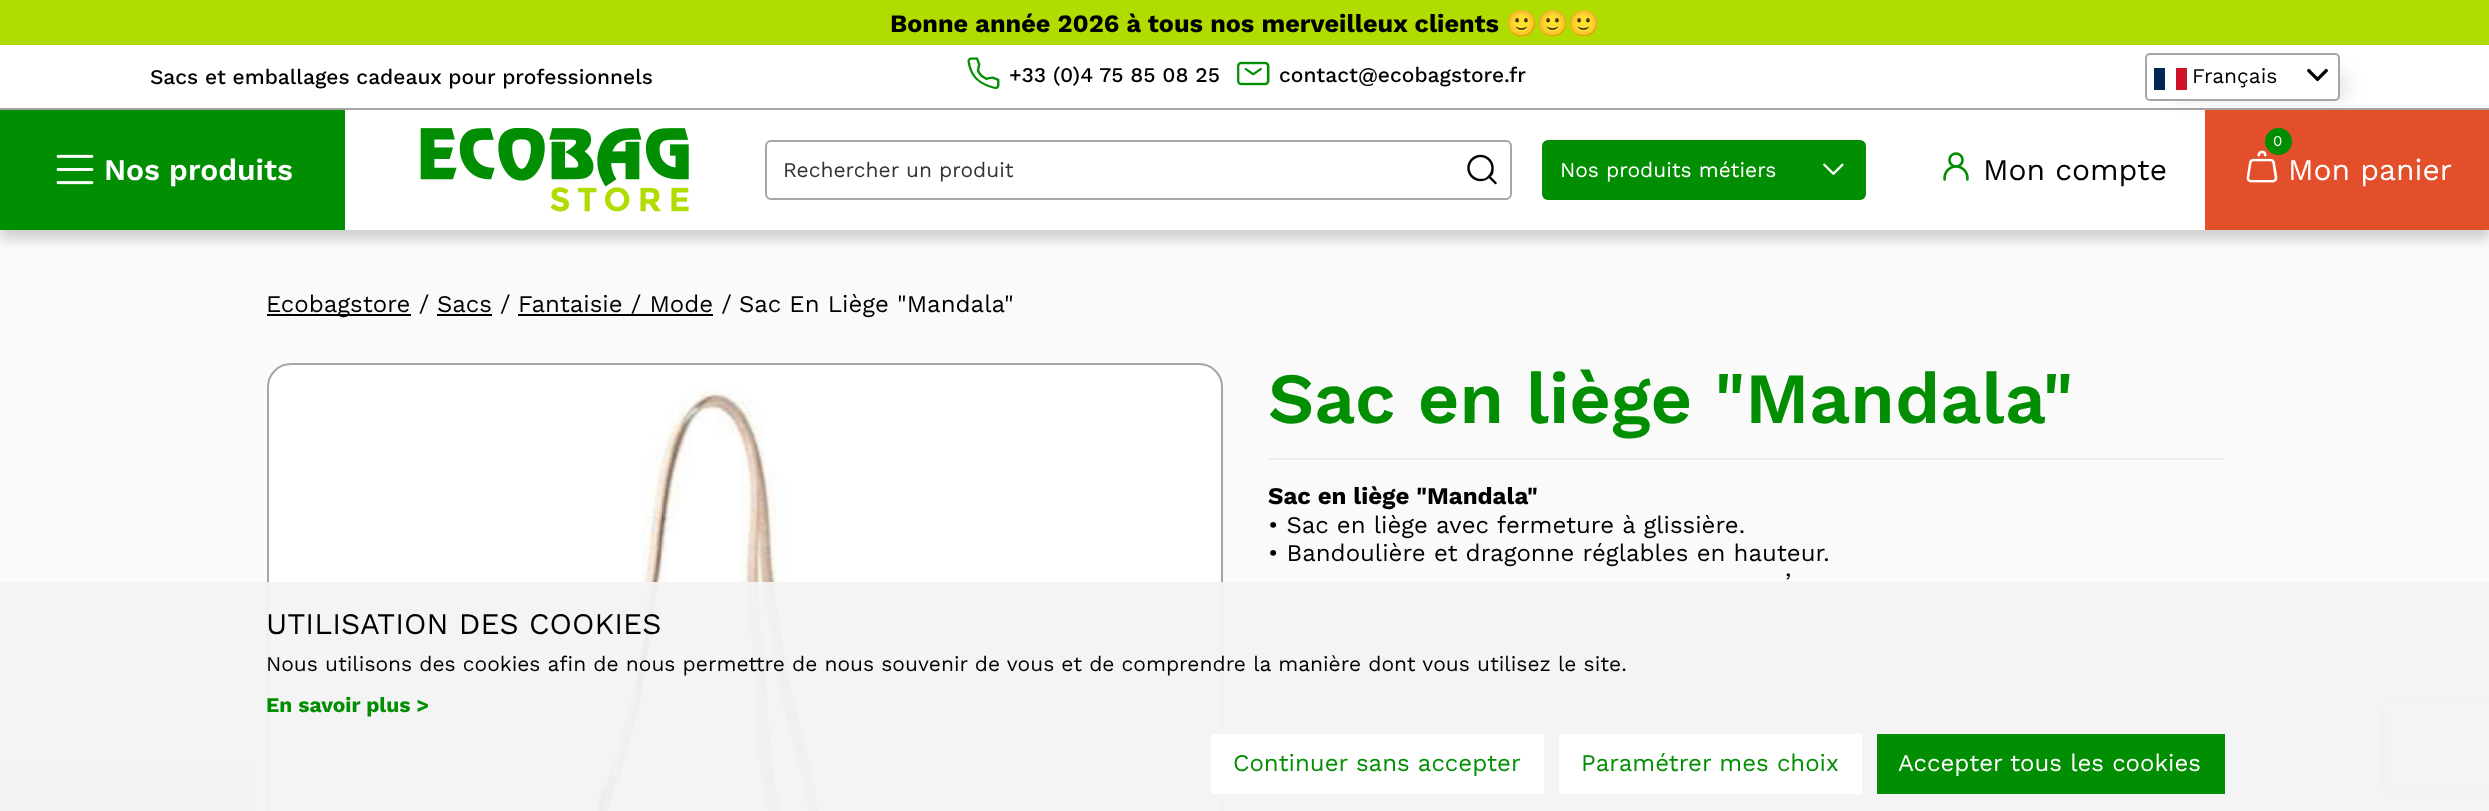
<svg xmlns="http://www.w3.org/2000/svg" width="2489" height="811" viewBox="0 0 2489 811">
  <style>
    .t1 { font: bold 25.2px Work Sans; fill: #000; }
    .t2 { font: bold 25.2px Noto Color Emoji; fill: #000; }
    .t3 { font: 500 21px Work Sans; fill: #000; }
    .t4 { font: 21px Work Sans; fill: #000; }
    .t5 { font: 600 30px Work Sans; fill: #fff; }
    .t6 { font: 21px Work Sans; fill: #333; }
    .t7 { font: 21px Work Sans; fill: #fff; }
    .t8 { font: 30px Work Sans; fill: #000; }
    .t9 { font: 15px Work Sans; fill: #fff; }
    .t10 { font: 30px Work Sans; fill: #fff; }
    .t11 { font: 24px Work Sans; fill: #000; }
    .t12 { font: 600 72px Work Sans; fill: #028e02; }
    .t13 { font: bold 24px Work Sans; fill: #000; }
    .t14 { font: bold 21px Work Sans; fill: #028e02; }
    .t15 { font: 24px Work Sans; fill: #028e02; }
    .t16 { font: 24px Work Sans; fill: #fff; }
  </style>
  <defs>
    <clipPath id="clip1"><path d="M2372 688H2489V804H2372ZM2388 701H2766C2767.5 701 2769 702.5 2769 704V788C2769 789.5 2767.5 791 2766 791H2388C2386.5 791 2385 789.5 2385 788V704C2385 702.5 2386.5 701 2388 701Z" clip-rule="evenodd"/></clipPath>
  </defs>
  <rect width="100%" height="100%" fill="#fafafa"/>
  <rect x="0" y="0" width="2489" height="45" fill="#b0dc00"/>
  <text x="890" y="32" class="t1">Bonne année 2026 à tous nos merveilleux clients</text>
  <text x="1506" y="32" class="t2">🙂🙂🙂</text>
  <rect x="0" y="54" width="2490" height="185" fill="#cfcfcf" filter="blur(6px)"/>
  <rect x="0" y="45" width="2489" height="185" fill="#fff"/>
  <rect x="0" y="108" width="2489" height="2" fill="#a5a5a5"/>
  <text x="150" y="84" class="t3">Sacs et emballages cadeaux pour professionnels</text>
  <image x="967" y="57" width="33" height="33" href="images/1.png"/>
  <text x="1009" y="82" class="t3">+33 (0)4 75 85 08 25</text>
  <image x="1237" y="61" width="33" height="25" href="images/2.png"/>
  <text x="1279" y="82" class="t3">contact@ecobagstore.fr</text>
  <rect x="2205" y="110" width="284" height="120" fill="#e34f2b"/>
  <rect x="2177" y="75" width="168" height="21" fill="#00000029" filter="blur(10px)"/>
  <rect x="2146" y="54" width="193" height="46" rx="4" fill="#fff" stroke="#a5a5a5" stroke-width="2"/>
  <rect x="2154" y="68" width="11" height="22" fill="#002654"/>
  <rect x="2176" y="68" width="11" height="22" fill="#cd1127"/>
  <text x="2192" y="83" class="t4">Français</text>
  <image x="2307" y="68" width="21" height="14" href="images/3.png"/>
  <rect x="0" y="110" width="345" height="120" fill="#028e02"/>
  <image x="56" y="154" width="38" height="31" href="images/4.png"/>
  <text x="104" y="180" class="t5">Nos produits</text>
  <image x="420" y="128" width="269" height="84" href="images/5.png"/>
  <rect x="766" y="141" width="745" height="58" rx="5" fill="none" stroke="#a5a5a5" stroke-width="2"/>
  <text x="783" y="177" class="t6">Rechercher un produit</text>
  <image x="1467" y="154" width="30" height="31" href="images/6.png"/>
  <rect x="1542" y="140" width="324" height="60" rx="6" fill="#028e02"/>
  <text x="1560" y="177" class="t7">Nos produits métiers</text>
  <image x="1823" y="163" width="21" height="12" href="images/7.png"/>
  <image x="1943" y="152" width="26" height="29" href="images/8.png"/>
  <text x="1983" y="180" class="t8">Mon compte</text>
  <image x="2246" y="150" width="32" height="33" href="images/9.png"/>
  <circle cx="2278.5" cy="141.5" r="13.5" fill="#028e02"/>
  <text x="2273" y="146" class="t9">0</text>
  <text x="2288" y="180" class="t10">Mon panier</text>
  <rect x="267" y="314" width="144" height="2" fill="#000"/>
  <text x="266" y="312" class="t11">Ecobagstore /</text>
  <text x="437" y="312" class="t11">Sacs /</text>
  <rect x="437" y="314" width="55" height="2" fill="#000"/>
  <text x="518" y="312" class="t11">Fantaisie / Mode /</text>
  <rect x="518" y="314" width="195" height="2" fill="#000"/>
  <text x="739" y="312" class="t11">Sac En Liège "Mandala"</text>
  <rect x="268" y="364" width="954" height="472" rx="23" fill="#fff" stroke="#a5a5a5" stroke-width="2"/>
  <image x="593" y="387" width="233" height="424" href="images/10.png"/>
  <rect x="1268" y="458" width="957" height="2" fill="#eee"/>
  <text x="1268" y="423" class="t12">Sac en liège "Mandala"</text>
  <text x="1268" y="504" class="t13">Sac en liège "Mandala"</text>
  <text x="1268" y="533" class="t11">• Sac en liège avec fermeture à glissière.</text>
  <text x="1268" y="561" class="t11">• Bandoulière et dragonne réglables en hauteur.</text>
  <text x="1785" y="590" class="t11">’</text>
  <g clip-path="url(#clip1)">
    <rect x="2385" y="701" width="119" height="90" rx="3" fill="#808080" filter="blur(4px)"/>
  </g>
  <rect x="0" y="582" width="2489" height="229" fill="#f3f3f3f2"/>
  <text x="266" y="634" class="t8">UTILISATION DES COOKIES</text>
  <text x="266" y="671" class="t4">Nous utilisons des cookies afin de nous permettre de nous souvenir de vous et de comprendre la manière dont vous utilisez le site.</text>
  <text x="266" y="712" class="t14">En savoir plus &gt;</text>
  <rect x="1211" y="734" width="333" height="60" fill="#fff"/>
  <text x="1233" y="771" class="t15">Continuer sans accepter</text>
  <rect x="1559" y="734" width="303" height="60" fill="#fff"/>
  <text x="1581" y="771" class="t15">Paramétrer mes choix</text>
  <rect x="1877" y="734" width="348" height="60" fill="#028e02"/>
  <text x="1898" y="771" class="t16">Accepter tous les cookies</text>
</svg>
